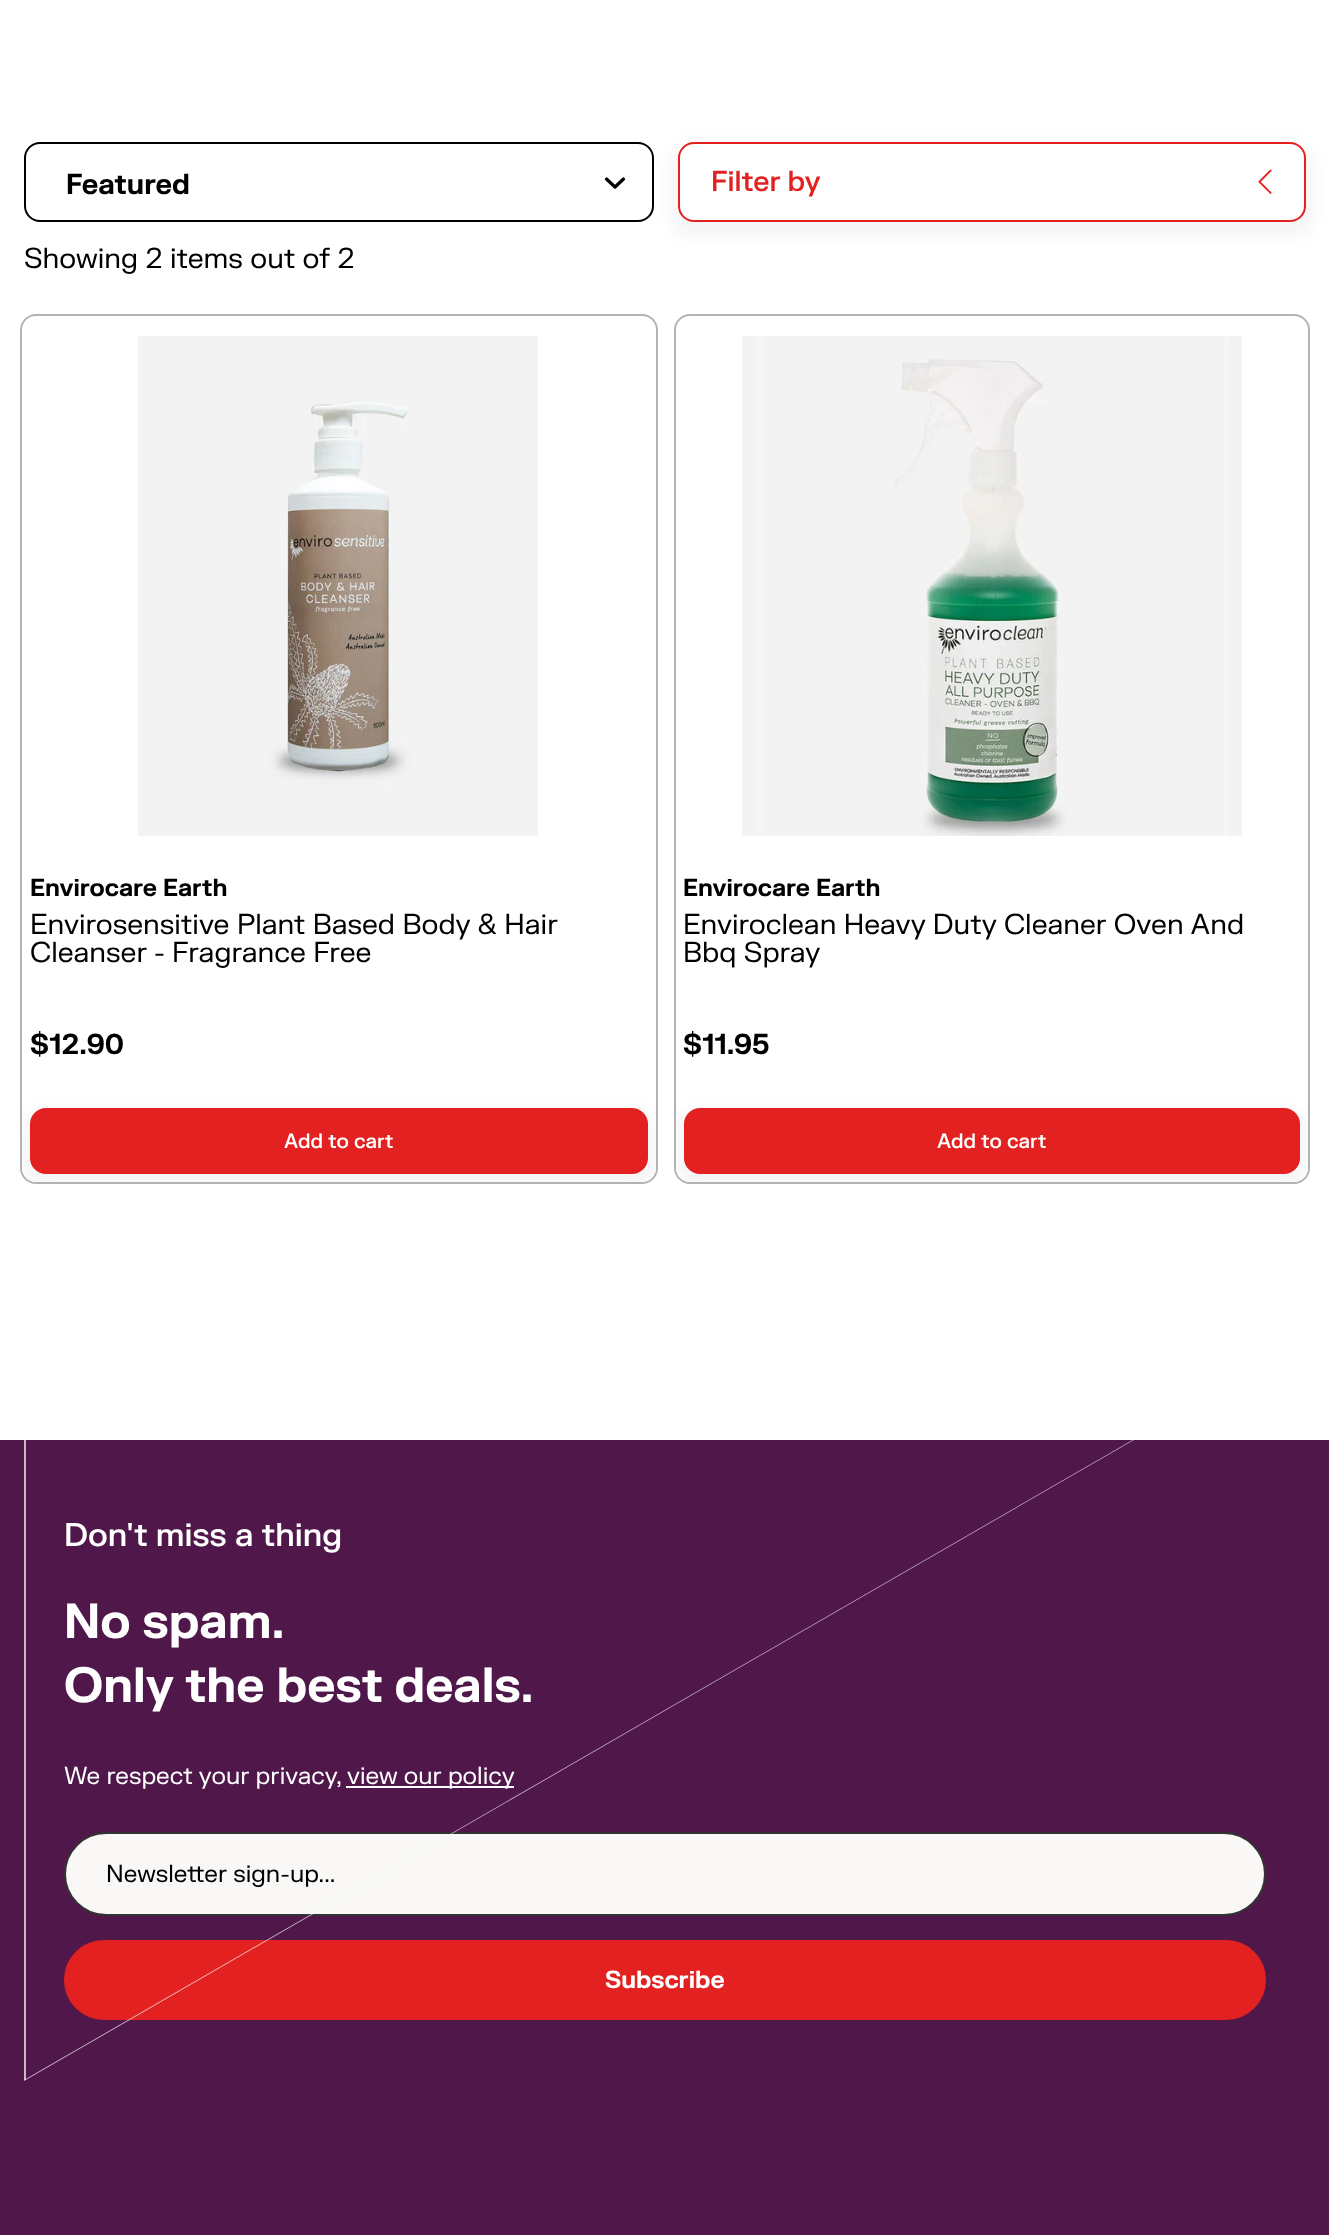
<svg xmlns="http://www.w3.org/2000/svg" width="1329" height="2235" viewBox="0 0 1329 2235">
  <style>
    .t1 { font: bold 28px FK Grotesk; fill: #000; }
    .t2 { font: 500 28px FK Grotesk; fill: #e22120; }
    .t3 { font: 28px FK Grotesk; fill: #000; }
    .t4 { font: bold 24px FK Grotesk; fill: #000; }
    .t5 { font: 500 20px FK Grotesk; fill: #fff; }
    .t6 { font: 500 32px FK Grotesk; fill: #fff; }
    .t7 { font: bold 48px FK Grotesk; fill: #fff; }
    .t8 { font: 24px FK Grotesk; fill: #fff; }
    .t9 { font: 24px FK Grotesk; fill: #000; }
    .t10 { font: bold 24px FK Grotesk; fill: #fff; }
  </style>
  <defs>
    <clipPath id="clip1"><rect x="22" y="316" width="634" height="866" rx="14"/></clipPath>
    <clipPath id="clip2"><rect x="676" y="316" width="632" height="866" rx="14"/></clipPath>
    <clipPath id="clip3"><rect x="0" y="1440" width="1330" height="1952"/></clipPath>
  </defs>
  <rect width="100%" height="100%" fill="#fff"/>
  <path d="M606.5 179L615 187L623.5 179" fill="none" stroke="#000" stroke-width="3.2" stroke-linecap="round" stroke-linejoin="round"/>
  <rect x="25" y="143" width="628" height="78" rx="15" fill="none" stroke="#000" stroke-width="2"/>
  <text x="66" y="194" class="t1">Featured</text>
  <rect x="670" y="142" width="644" height="96" rx="24" fill="#0000000a" filter="blur(8px)"/>
  <rect x="679" y="143" width="626" height="78" rx="15" fill="#fff" stroke="#e22120" stroke-width="2"/>
  <text x="711" y="191" class="t2">Filter by</text>
  <image x="1258" y="169" width="14" height="25" href="images/1.png"/>
  <text x="24" y="268" class="t3">Showing 2 items out of 2</text>
  <rect x="21" y="315" width="636" height="868" rx="15" fill="none" stroke="#b3b3b3" stroke-width="2"/>
  <image x="138" y="336" width="400" height="500" href="images/2.png"/>
  <text x="30" y="896" class="t4">Envirocare Earth</text>
  <text x="30" y="934" class="t3">Envirosensitive Plant Based Body &amp; Hair</text>
  <text x="30" y="962" class="t3">Cleanser - Fragrance Free</text>
  <text x="30" y="1054" class="t1">$12.90</text>
  <path d="M22 1108H656V1168C656 1175.5 649.5 1182 642 1182H36C28.5 1182 22 1175.5 22 1168Z" fill="#fff"/>
  <g clip-path="url(#clip1)">
    <rect x="22" y="1108" width="634" height="82" rx="24" fill="#0000000a" filter="blur(8px)"/>
  </g>
  <rect x="31" y="1109" width="616" height="64" rx="15" fill="#e22120" stroke="#e22120" stroke-width="2"/>
  <text x="284" y="1148" class="t5">Add to cart</text>
  <rect x="675" y="315" width="634" height="868" rx="15" fill="none" stroke="#b3b3b3" stroke-width="2"/>
  <image x="742" y="336" width="500" height="500" href="images/3.png"/>
  <text x="683" y="896" class="t4">Envirocare Earth</text>
  <text x="683" y="934" class="t3">Enviroclean Heavy Duty Cleaner Oven And</text>
  <text x="683" y="962" class="t3">Bbq Spray</text>
  <text x="683" y="1054" class="t1">$11.95</text>
  <path d="M676 1108H1308V1168C1308 1175.5 1301.5 1182 1294 1182H690C682.5 1182 676 1175.5 676 1168Z" fill="#fff"/>
  <g clip-path="url(#clip2)">
    <rect x="676" y="1108" width="632" height="82" rx="24" fill="#0000000a" filter="blur(8px)"/>
  </g>
  <rect x="685" y="1109" width="614" height="64" rx="15" fill="#e22120" stroke="#e22120" stroke-width="2"/>
  <text x="937" y="1148" class="t5">Add to cart</text>
  <rect x="0" y="1440" width="1329" height="795" fill="#50174b"/>
  <rect x="24" y="1440" width="2" height="640" fill="#cbb9c9"/>
  <text x="64" y="1546" class="t6">Don't miss a thing</text>
  <text x="64" y="1638" class="t7">No spam.</text>
  <text x="64" y="1702" class="t7">Only the best deals.</text>
  <text x="64" y="1784" class="t8">We respect your privacy,</text>
  <rect x="346" y="1786" width="168" height="2" fill="#fff"/>
  <text x="347" y="1784" class="t8">view our policy</text>
  <rect x="65" y="1833" width="1200" height="82" rx="41" fill="#f9f8f6" stroke="#333" stroke-width="2"/>
  <text x="106" y="1882" class="t9">Newsletter sign-up...</text>
  <rect x="65" y="1941" width="1200" height="78" rx="39" fill="#e22120" stroke="#e22120" stroke-width="2"/>
  <text x="605" y="1988" class="t10">Subscribe</text>
  <g clip-path="url(#clip3)">
    <path d="M24 2080L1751 1083H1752L24 2081Z" fill="#ffffffb3"/>
  </g>
</svg>
